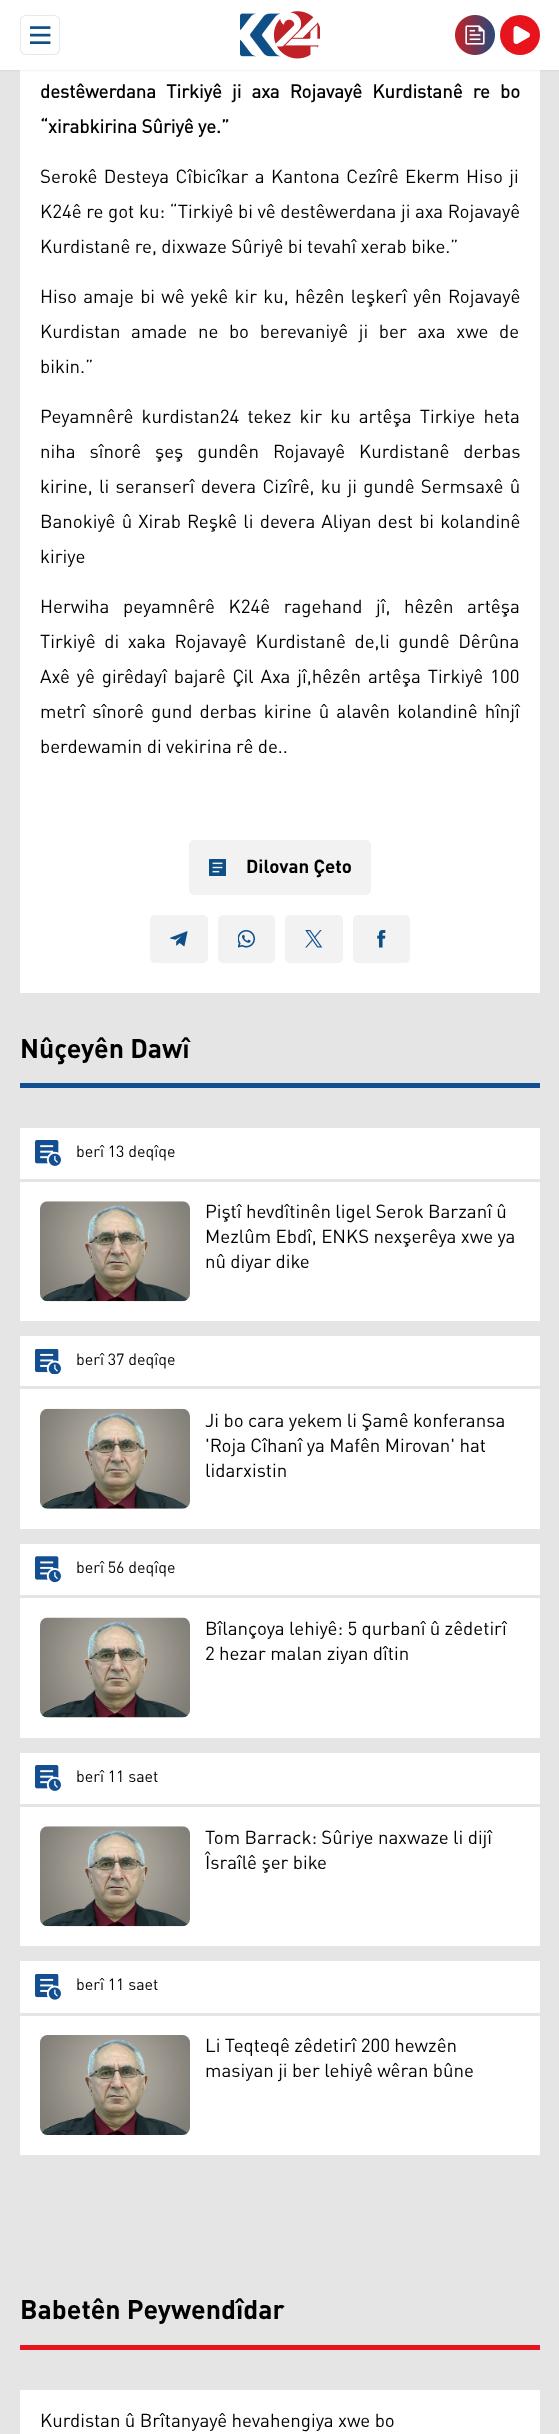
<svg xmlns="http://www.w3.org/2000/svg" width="559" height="2434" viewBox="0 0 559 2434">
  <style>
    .t1 { font: bold 17.5px 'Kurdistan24'; fill: #000; }
    .t2 { font: 17.5px 'Kurdistan24'; fill: #000; }
    .t3 { font: bold 17.5px 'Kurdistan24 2'; fill: #000; }
    .t4 { font: bold 25px 'Kurdistan24 2'; fill: #000; }
    .t5 { font: 15px 'Kurdistan24'; fill: #000; }
  </style>
  <rect width="100%" height="100%" fill="#e5e5e5"/>
  <rect x="20" y="70" width="520" height="923" fill="#fff"/>
  <rect x="0" y="1" width="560" height="70" fill="#0000000d" filter="blur(1px)"/>
  <rect x="0" y="0" width="559" height="70" fill="#fff"/>
  <image x="20" y="15" width="40" height="40" href="images/1.png"/>
  <image x="240" y="11" width="80" height="48" href="images/2.png"/>
  <image x="455" y="15" width="40" height="40" href="images/3.png"/>
  <circle cx="520" cy="35" r="20" fill="#e7131d"/>
  <path d="M528.5 32.5C530.5 33.5 530.5 36.5 528.5 37.5L518 43.5C516 45 513.5 43.5 513.5 41V29C513.5 26.5 516 25 518 26.5Z" fill="#fff"/>
  <text x="40" y="98" word-spacing="5.75" class="t1">destêwerdana Tirkiyê ji axa Rojavayê Kurdistanê re bo</text>
  <text x="40" y="133" class="t1">“xirabkirina Sûriyê ye.”</text>
  <text x="40" y="183" word-spacing="2" class="t2">Serokê Desteya Cîbicîkar a Kantona Cezîrê Ekerm Hiso ji</text>
  <text x="40" y="218" word-spacing="0.25" class="t2">K24ê re got ku: “Tirkiyê bi vê destêwerdana ji axa Rojavayê</text>
  <text x="40" y="253" class="t2">Kurdistanê re, dixwaze Sûriyê bi tevahî xerab bike.”</text>
  <text x="40" y="303" word-spacing="1.9" class="t2">Hiso amaje bi wê yekê kir ku, hêzên leşkerî yên Rojavayê</text>
  <text x="40" y="338" word-spacing="6.25" class="t2">Kurdistan amade ne bo berevaniyê ji ber axa xwe de</text>
  <text x="40" y="373" class="t2">bikin.”</text>
  <text x="40" y="423" word-spacing="3.75" class="t2">Peyamnêrê kurdistan24 tekez kir ku artêşa Tirkiye heta</text>
  <text x="40" y="458" word-spacing="9.5" class="t2">niha sînorê şeş gundên Rojavayê Kurdistanê derbas</text>
  <text x="40" y="493" word-spacing="1.9" class="t2">kirine, li seranserî devera Cizîrê, ku ji gundê Sermsaxê û</text>
  <text x="40" y="528" word-spacing="1.75" class="t2">Banokiyê û Xirab Reşkê li devera Aliyan dest bi kolandinê</text>
  <text x="40" y="563" class="t2">kiriye</text>
  <text x="40" y="613" word-spacing="9.25" class="t2">Herwiha peyamnêrê K24ê ragehand jî, hêzên artêşa</text>
  <text x="40" y="648" word-spacing="4.25" class="t2">Tirkiyê di xaka Rojavayê Kurdistanê de,li gundê Dêrûna</text>
  <text x="40" y="683" word-spacing="2.5" class="t2">Axê yê girêdayî bajarê Çil Axa jî,hêzên artêşa Tirkiyê 100</text>
  <text x="40" y="718" word-spacing="2.75" class="t2">metrî sînorê gund derbas kirine û alavên kolandinê hînjî</text>
  <text x="40" y="753" class="t2">berdewamin di vekirina rê de..</text>
  <rect x="189" y="840" width="182" height="55" rx="5" fill="#f2f2f2"/>
  <image x="209" y="859" width="17" height="17" href="images/4.png"/>
  <text x="246" y="873" class="t3">Dilovan Çeto</text>
  <rect x="150" y="915" width="58" height="48" rx="5" fill="#f2f2f2"/>
  <image x="170" y="931" width="18" height="16" href="images/5.png"/>
  <rect x="218" y="915" width="57" height="48" rx="5" fill="#f2f2f2"/>
  <image x="238" y="930" width="17" height="18" href="images/6.png"/>
  <rect x="285" y="915" width="58" height="48" rx="5" fill="#f2f2f2"/>
  <image x="305" y="930" width="18" height="18" href="images/7.png"/>
  <rect x="353" y="915" width="57" height="48" rx="5" fill="#f2f2f2"/>
  <image x="377" y="930" width="9" height="18" href="images/8.png"/>
  <rect x="20" y="1083" width="520" height="5" fill="#124e90"/>
  <text x="20" y="1058" class="t4">Nûçeyên Dawî</text>
  <rect x="20" y="1128" width="520" height="193" fill="#fff"/>
  <rect x="20" y="1179" width="520" height="3" fill="#e5e5e5"/>
  <image x="35" y="1140" width="26" height="26" href="images/9.png"/>
  <text x="76" y="1157" class="t5">berî 13 deqîqe</text>
  <image x="40" y="1201" width="150" height="101" href="images/10.png"/>
  <text x="205" y="1218" class="t2">Piştî hevdîtinên ligel Serok Barzanî û</text>
  <text x="205" y="1243" class="t2">Mezlûm Ebdî, ENKS nexşerêya xwe ya</text>
  <text x="205" y="1268" class="t2">nû diyar dike</text>
  <rect x="20" y="1336" width="520" height="193" fill="#fff"/>
  <rect x="20" y="1386" width="520" height="3" fill="#e5e5e5"/>
  <image x="35" y="1349" width="26" height="25" href="images/11.png"/>
  <text x="76" y="1365" class="t5">berî 37 deqîqe</text>
  <image x="40" y="1408" width="150" height="101" href="images/12.png"/>
  <text x="205" y="1427" class="t2">Ji bo cara yekem li Şamê konferansa</text>
  <text x="205" y="1452" class="t2">'Roja Cîhanî ya Mafên Mirovan' hat</text>
  <text x="205" y="1477" class="t2">lidarxistin</text>
  <rect x="20" y="1544" width="520" height="194" fill="#fff"/>
  <rect x="20" y="1595" width="520" height="3" fill="#e5e5e5"/>
  <image x="35" y="1556" width="26" height="27" href="images/13.png"/>
  <text x="76" y="1573" class="t5">berî 56 deqîqe</text>
  <image x="40" y="1617" width="150" height="101" href="images/14.png"/>
  <text x="205" y="1635" class="t2">Bîlançoya lehiyê: 5 qurbanî û zêdetirî</text>
  <text x="205" y="1660" class="t2">2 hezar malan ziyan dîtin</text>
  <rect x="20" y="1753" width="520" height="193" fill="#fff"/>
  <rect x="20" y="1804" width="520" height="3" fill="#e5e5e5"/>
  <image x="35" y="1765" width="26" height="26" href="images/9.png"/>
  <text x="76" y="1782" class="t5">berî 11 saet</text>
  <image x="40" y="1826" width="150" height="101" href="images/10.png"/>
  <text x="205" y="1844" class="t2">Tom Barrack: Sûriye naxwaze li dijî</text>
  <text x="205" y="1869" class="t2">Îsraîlê şer bike</text>
  <rect x="20" y="1961" width="520" height="194" fill="#fff"/>
  <rect x="20" y="2013" width="520" height="3" fill="#e5e5e5"/>
  <image x="35" y="1974" width="26" height="26" href="images/15.png"/>
  <text x="76" y="1990" class="t5">berî 11 saet</text>
  <image x="40" y="2035" width="150" height="100" href="images/16.png"/>
  <text x="205" y="2052" class="t2">Li Teqteqê zêdetirî 200 hewzên</text>
  <text x="205" y="2077" class="t2">masiyan ji ber lehiyê wêran bûne</text>
  <rect x="20" y="2345" width="520" height="5" fill="#e7131d"/>
  <text x="20" y="2319" class="t4">Babetên Peywendîdar</text>
  <rect x="20" y="2390" width="520" height="44" fill="#fff"/>
  <text x="40" y="2427" class="t2">Kurdistan û Brîtanyayê hevahengiya xwe bo</text>
</svg>
